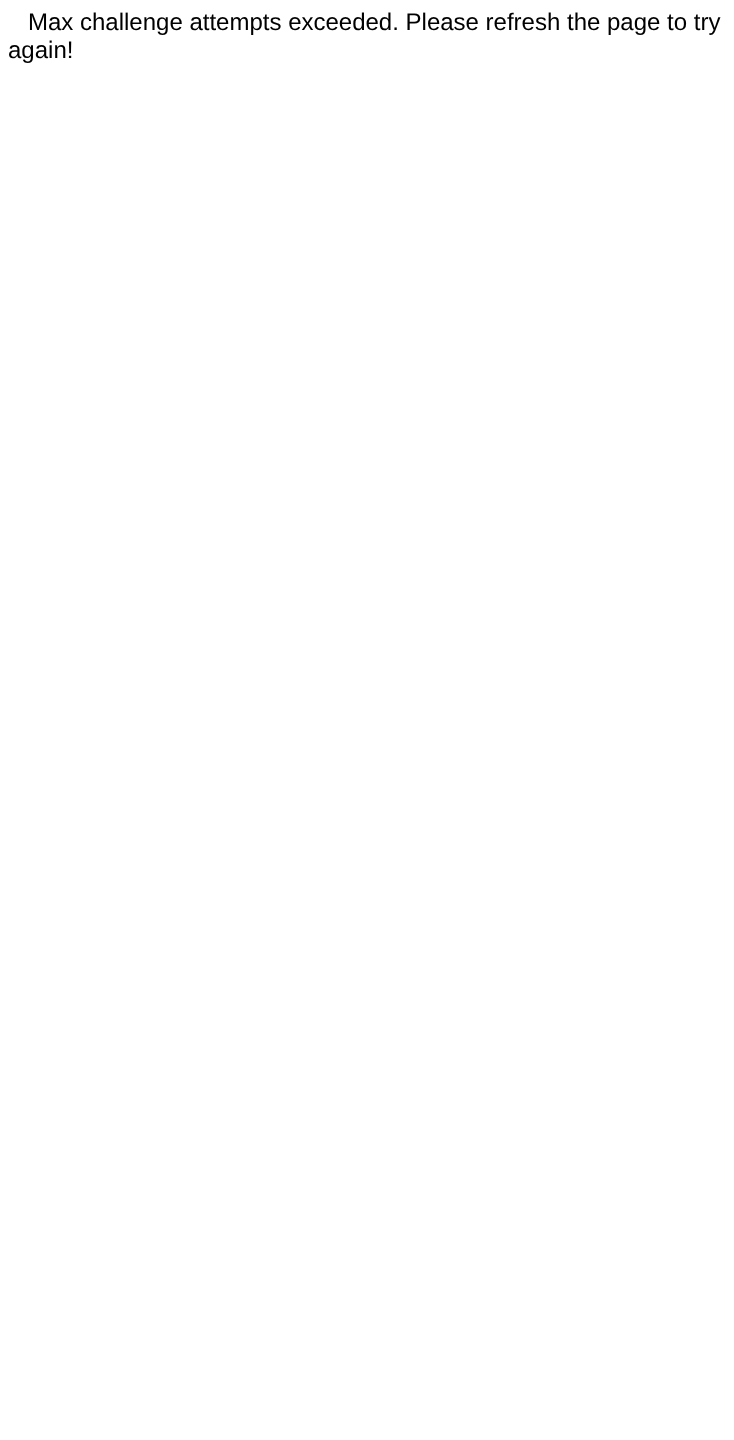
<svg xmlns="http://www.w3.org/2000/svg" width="734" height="1440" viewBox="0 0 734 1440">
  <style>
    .t1 { font: 24px Liberation Sans; fill: #000; }
  </style>
  <rect width="100%" height="100%" fill="#fff"/>
  <text x="28" y="30" class="t1">Max challenge attempts exceeded. Please refresh the page to try</text>
  <text x="8" y="58" class="t1">again!</text>
</svg>
